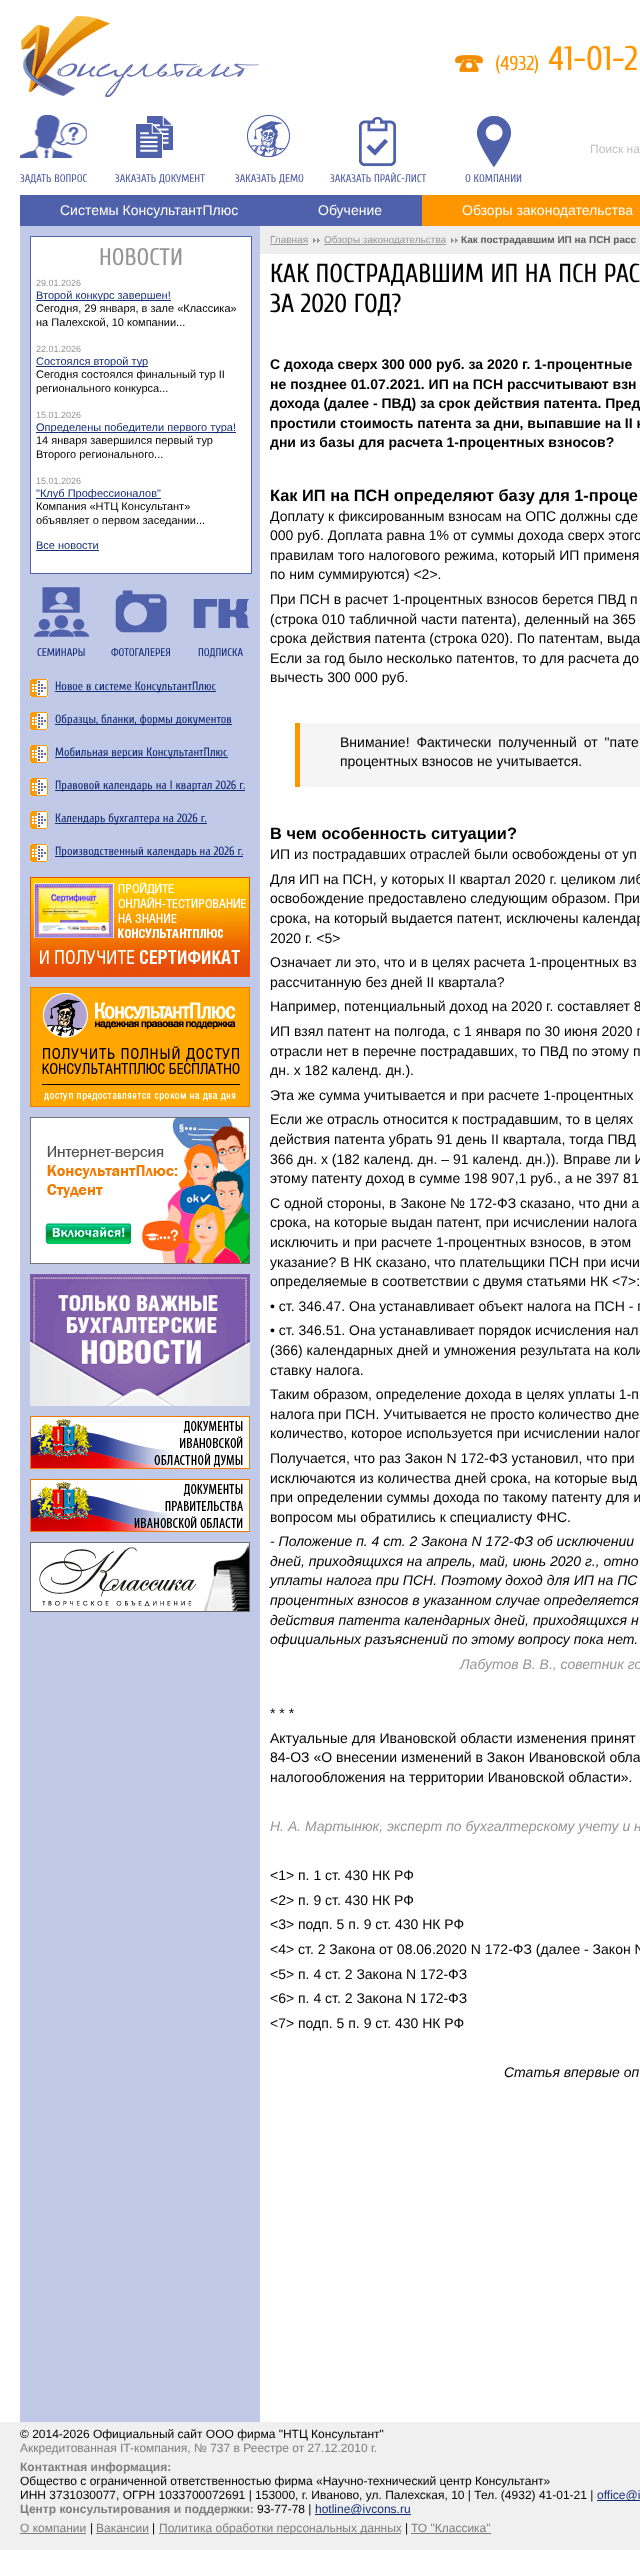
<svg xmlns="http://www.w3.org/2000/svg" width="640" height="2550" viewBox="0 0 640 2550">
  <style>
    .t1 { font: 20px Cuprum; fill: #ff9600; }
    .t2 { font: 34px Cuprum; fill: #ff9600; }
    .t3 { font: 12px Liberation Sans; fill: #c1c1c1; }
    .t4 { font: 11px Cuprum; fill: #5561a7; }
    .t5 { font: 14px Liberation Sans; fill: #fff; }
    .t6 { font: 24px Cuprum; fill: #959595; }
    .t7 { font: 9px Liberation Sans; fill: #959595; }
    .t8 { font: 11px Liberation Sans; fill: #162e76; }
    .t9 { font: 11px Liberation Sans; fill: #000; }
    .t10 { font: 11px Cuprum; fill: #162e76; }
    .t11 { font: 12px Cuprum; fill: #162e76; }
    .t12 { font: 10px Liberation Sans; fill: #959595; }
    .t13 { font: bold 10px Liberation Sans; fill: #5d5d5d; }
    .t14 { font: 26px Cuprum; fill: #000; }
    .t15 { font: bold 14px Liberation Sans; fill: #000; }
    .t16 { font: bold 16.4px Liberation Sans; fill: #000; }
    .t17 { font: 14px Liberation Sans; fill: #000; }
    .t18 { font: italic 14px Liberation Sans; fill: #000; }
    .t19 { font: italic 14px Liberation Sans; fill: #959595; }
    .t20 { font: 12px Liberation Sans; fill: #000; }
    .t21 { font: 12px Liberation Sans; fill: #7d7d7d; }
    .t22 { font: bold 12px Liberation Sans; fill: #7d7d7d; }
    .t23 { font: 12px Liberation Sans; fill: #162e76; }
  </style>
  <rect width="100%" height="100%" fill="#fff"/>
  <rect x="20" y="226" width="240" height="2196" fill="#c0c9e8"/>
  <image x="21" y="16" width="238" height="81" href="images/1.png"/>
  <image x="455" y="55" width="28" height="17" href="images/2.png"/>
  <text x="495" y="70" class="t1">(4932)</text>
  <text x="548" y="70" class="t2">41-01-2</text>
  <text x="590" y="153" class="t3">Поиск на</text>
  <image x="20" y="115" width="67" height="43" href="images/3.png"/>
  <text x="20" y="182" class="t4">ЗАДАТЬ ВОПРОС</text>
  <image x="136" y="116" width="37" height="42" href="images/4.png"/>
  <text x="115" y="182" class="t4">ЗАКАЗАТЬ ДОКУМЕНТ</text>
  <image x="247" y="115" width="43" height="42" href="images/5.png"/>
  <text x="235" y="182" class="t4">ЗАКАЗАТЬ ДЕМО</text>
  <image x="359" y="117" width="37" height="49" href="images/6.png"/>
  <text x="330" y="182" class="t4">ЗАКАЗАТЬ ПРАЙС-ЛИСТ</text>
  <image x="477" y="116" width="34" height="51" href="images/7.png"/>
  <text x="465" y="182" class="t4">О КОМПАНИИ</text>
  <rect x="20" y="195" width="402" height="31" fill="#4f61ab"/>
  <text x="60" y="215" class="t5">Системы КонсультантПлюс</text>
  <text x="318" y="215" class="t5">Обучение</text>
  <rect x="422" y="195" width="218" height="31" fill="#ff9600"/>
  <text x="462" y="215" class="t5">Обзоры законодательства</text>
  <rect x="30.5" y="236.5" width="221" height="337" fill="#fff" stroke="#5661a7"/>
  <text x="99" y="265" class="t6">НОВОСТИ</text>
  <text x="36" y="286" class="t7">29.01.2026</text>
  <rect x="36" y="300" width="135" height="1" fill="#162e76"/>
  <text x="36" y="299" class="t8">Второй конкурс завершен!</text>
  <text x="36" y="312" class="t9">Сегодня, 29 января, в зале «Классика»</text>
  <text x="36" y="326" class="t9">на Палехской, 10 компании...</text>
  <text x="36" y="352" class="t7">22.01.2026</text>
  <rect x="36" y="366" width="112" height="1" fill="#162e76"/>
  <text x="36" y="365" class="t8">Состоялся второй тур</text>
  <text x="36" y="378" class="t9">Сегодня состоялся финальный тур II</text>
  <text x="36" y="392" class="t9">регионального конкурса...</text>
  <text x="36" y="418" class="t7">15.01.2026</text>
  <rect x="36" y="432" width="200" height="1" fill="#162e76"/>
  <text x="36" y="431" class="t8">Определены победители первого тура!</text>
  <text x="36" y="444" class="t9">14 января завершился первый тур</text>
  <text x="36" y="458" class="t9">Второго регионального...</text>
  <text x="36" y="484" class="t7">15.01.2026</text>
  <rect x="36" y="498" width="125" height="1" fill="#162e76"/>
  <text x="36" y="497" class="t8">"Клуб Профессионалов"</text>
  <text x="36" y="510" class="t9">Компания «НТЦ Консультант»</text>
  <text x="36" y="524" class="t9">объявляет о первом заседании...</text>
  <text x="36" y="549" class="t8">Все новости</text>
  <rect x="36" y="550" width="63" height="1" fill="#162e76"/>
  <image x="34" y="587" width="55" height="50" href="images/8.png"/>
  <text x="37" y="656" class="t10">СЕМИНАРЫ</text>
  <image x="115" y="590" width="52" height="43" href="images/9.png"/>
  <text x="111" y="656" class="t10">ФОТОГАЛЕРЕЯ</text>
  <image x="193" y="599" width="57" height="29" href="images/10.png"/>
  <text x="198" y="656" class="t10">ПОДПИСКА</text>
  <image x="30" y="679" width="18" height="18" href="images/11.png"/>
  <rect x="55" y="691" width="161" height="1" fill="#162e76"/>
  <text x="55" y="690" class="t11">Новое в системе КонсультантПлюс</text>
  <image x="30" y="712" width="18" height="18" href="images/11.png"/>
  <rect x="55" y="724" width="177" height="1" fill="#162e76"/>
  <text x="55" y="723" class="t11">Образцы, бланки, формы документов</text>
  <image x="30" y="745" width="18" height="18" href="images/11.png"/>
  <rect x="55" y="757" width="173" height="1" fill="#162e76"/>
  <text x="55" y="756" class="t11">Мобильная версия КонсультантПлюс</text>
  <image x="30" y="778" width="18" height="18" href="images/11.png"/>
  <rect x="55" y="790" width="190" height="1" fill="#162e76"/>
  <text x="55" y="789" class="t11">Правовой календарь на I квартал 2026 г.</text>
  <image x="30" y="811" width="18" height="18" href="images/11.png"/>
  <rect x="55" y="823" width="152" height="1" fill="#162e76"/>
  <text x="55" y="822" class="t11">Календарь бухгалтера на 2026 г.</text>
  <image x="30" y="844" width="18" height="18" href="images/11.png"/>
  <rect x="55" y="856" width="188" height="1" fill="#162e76"/>
  <text x="55" y="855" class="t11">Производственный календарь на 2026 г.</text>
  <image x="30" y="877" width="220" height="100" href="images/12.png"/>
  <image x="30" y="987" width="220" height="120" href="images/13.png"/>
  <image x="30" y="1117" width="220" height="147" href="images/14.png"/>
  <image x="30" y="1274" width="220" height="132" href="images/15.png"/>
  <image x="30" y="1416" width="220" height="53" href="images/16.png"/>
  <image x="30" y="1479" width="220" height="53" href="images/17.png"/>
  <image x="30" y="1542" width="220" height="70" href="images/18.png"/>
  <rect x="260" y="226" width="380" height="28" fill="#efeeee"/>
  <text x="270" y="243" class="t12">Главная</text>
  <rect x="270" y="244" width="38" height="1" fill="#989696"/>
  <image x="313" y="238" width="7" height="5" href="images/19.png"/>
  <rect x="324" y="244" width="122" height="1" fill="#989696"/>
  <text x="324" y="243" class="t12">Обзоры законодательства</text>
  <image x="451" y="238" width="7" height="5" href="images/19.png"/>
  <text x="461" y="243" class="t13">Как пострадавшим ИП на ПСН расс</text>
  <text x="270" y="282" class="t14">КАК ПОСТРАДАВШИМ ИП НА ПСН РАС</text>
  <text x="270" y="312" class="t14">ЗА 2020 ГОД?</text>
  <text x="270" y="369" class="t15">С дохода сверх 300 000 руб. за 2020 г. 1-процентные</text>
  <text x="270" y="389" class="t15">не позднее 01.07.2021. ИП на ПСН рассчитывают взн</text>
  <text x="270" y="408" class="t15">дохода (далее - ПВД) за срок действия патента. Пред</text>
  <text x="270" y="428" class="t15">простили стоимость патента за дни, выпавшие на II к</text>
  <text x="270" y="447" class="t15">дни из базы для расчета 1-процентных взносов?</text>
  <text x="270" y="501" class="t16">Как ИП на ПСН определяют базу для 1-проце</text>
  <text x="270" y="521" class="t17">Доплату к фиксированным взносам на ОПС должны сде</text>
  <text x="270" y="540" class="t17">000 руб. Доплата равна 1% от суммы дохода сверх этого</text>
  <text x="270" y="560" class="t17">правилам того налогового режима, который ИП применя</text>
  <text x="270" y="579" class="t17">по ним суммируются) &lt;2&gt;.</text>
  <text x="270" y="604" class="t17">При ПСН в расчет 1-процентных взносов берется ПВД п</text>
  <text x="270" y="624" class="t17">(строка 010 табличной части патента), деленный на 365</text>
  <text x="270" y="643" class="t17">срока действия патента (строка 020). По патентам, выда</text>
  <text x="270" y="663" class="t17">Если за год было несколько патентов, то для расчета до</text>
  <text x="270" y="682" class="t17">вычесть 300 000 руб.</text>
  <rect x="300" y="723" width="340" height="64" fill="#f5f5f5"/>
  <rect x="295" y="723" width="5" height="64" fill="#ff9600"/>
  <text x="340" y="747" word-spacing="3" class="t17">Внимание! Фактически полученный от "пате</text>
  <text x="340" y="766" class="t17">процентных взносов не учитывается.</text>
  <text x="270" y="839" class="t16">В чем особенность ситуации?</text>
  <text x="270" y="859" class="t17">ИП из пострадавших отраслей были освобождены от уп</text>
  <text x="270" y="884" class="t17">Для ИП на ПСН, у которых II квартал 2020 г. целиком либ</text>
  <text x="270" y="903" class="t17">освобождение предоставлено следующим образом. При</text>
  <text x="270" y="923" class="t17">срока, на который выдается патент, исключены календар</text>
  <text x="270" y="943" class="t17">2020 г. &lt;5&gt;</text>
  <text x="270" y="967" class="t17">Означает ли это, что и в целях расчета 1-процентных вз</text>
  <text x="270" y="987" class="t17">рассчитанную без дней II квартала?</text>
  <text x="270" y="1011" class="t17">Например, потенциальный доход на 2020 г. составляет 8</text>
  <text x="270" y="1036" class="t17">ИП взял патент на полгода, с 1 января по 30 июня 2020 г</text>
  <text x="270" y="1056" class="t17">отрасли нет в перечне пострадавших, то ПВД по этому п</text>
  <text x="270" y="1075" class="t17">дн. x 182 календ. дн.).</text>
  <text x="270" y="1100" class="t17">Эта же сумма учитывается и при расчете 1-процентных</text>
  <text x="270" y="1124" class="t17">Если же отрасль относится к пострадавшим, то в целях</text>
  <text x="270" y="1144" class="t17">действия патента убрать 91 день II квартала, тогда ПВД</text>
  <text x="270" y="1164" class="t17">366 дн. x (182 календ. дн. – 91 календ. дн.)). Вправе ли И</text>
  <text x="270" y="1183" class="t17">этому патенту доход в сумме 198 907,1 руб., а не 397 81</text>
  <text x="270" y="1208" class="t17">С одной стороны, в Законе № 172-ФЗ сказано, что дни а</text>
  <text x="270" y="1227" class="t17">срока, на которые выдан патент, при исчислении налога</text>
  <text x="270" y="1247" class="t17">исключить и при расчете 1-процентных взносов, в этом</text>
  <text x="270" y="1267" class="t17">указание? В НК сказано, что плательщики ПСН при исчи</text>
  <text x="270" y="1286" class="t17">определяемые в соответствии с двумя статьями НК &lt;7&gt;:</text>
  <text x="270" y="1311" class="t17">• ст. 346.47. Она устанавливает объект налога на ПСН - г</text>
  <text x="270" y="1335" class="t17">• ст. 346.51. Она устанавливает порядок исчисления нал</text>
  <text x="270" y="1355" class="t17">(366) календарных дней и умножения результата на коли</text>
  <text x="270" y="1375" class="t17">ставку налога.</text>
  <text x="270" y="1399" class="t17">Таким образом, определение дохода в целях уплаты 1-п</text>
  <text x="270" y="1419" class="t17">налога при ПСН. Учитывается не просто количество дне</text>
  <text x="270" y="1438" class="t17">количество, которое используется при исчислении налог</text>
  <text x="270" y="1463" class="t17">Получается, что раз Закон N 172-ФЗ установил, что при</text>
  <text x="270" y="1483" class="t17">исключаются из количества дней срока, на которые выд</text>
  <text x="270" y="1502" class="t17">при определении суммы дохода по такому патенту для и</text>
  <text x="270" y="1522" class="t17">вопросом мы обратились к специалисту ФНС.</text>
  <text x="270" y="1546" class="t18">- Положение п. 4 ст. 2 Закона N 172-ФЗ об исключении</text>
  <text x="270" y="1566" class="t18">дней, приходящихся на апрель, май, июнь 2020 г., отно</text>
  <text x="270" y="1585" class="t18">уплаты налога при ПСН. Поэтому доход для ИП на ПС</text>
  <text x="270" y="1605" class="t18">процентных взносов в указанном случае определяется</text>
  <text x="270" y="1625" class="t18">действия патента календарных дней, приходящихся н</text>
  <text x="270" y="1644" class="t18">официальных разъяснений по этому вопросу пока нет.</text>
  <text x="460" y="1669" class="t19">Лабутов В. В., советник го</text>
  <text x="270" y="1718" class="t17">* * *</text>
  <text x="270" y="1743" class="t17">Актуальные для Ивановской области изменения принят</text>
  <text x="270" y="1762" class="t17">84-ОЗ «О внесении изменений в Закон Ивановской обла</text>
  <text x="270" y="1782" class="t17">налогообложения на территории Ивановской области».</text>
  <text x="270" y="1831" class="t19">Н. А. Мартынюк, эксперт по бухгалтерскому учету и н</text>
  <text x="270" y="1880" class="t17">&lt;1&gt; п. 1 ст. 430 НК РФ</text>
  <text x="270" y="1905" class="t17">&lt;2&gt; п. 9 ст. 430 НК РФ</text>
  <text x="270" y="1929" class="t17">&lt;3&gt; подп. 5 п. 9 ст. 430 НК РФ</text>
  <text x="270" y="1954" class="t17">&lt;4&gt; ст. 2 Закона от 08.06.2020 N 172-ФЗ (далее - Закон N</text>
  <text x="270" y="1979" class="t17">&lt;5&gt; п. 4 ст. 2 Закона N 172-ФЗ</text>
  <text x="270" y="2003" class="t17">&lt;6&gt; п. 4 ст. 2 Закона N 172-ФЗ</text>
  <text x="270" y="2028" class="t17">&lt;7&gt; подп. 5 п. 9 ст. 430 НК РФ</text>
  <text x="504" y="2077" class="t18">Статья впервые оп</text>
  <rect x="0" y="2422" width="640" height="128" fill="#f0f0f0"/>
  <text x="20" y="2438" class="t20">© 2014-2026 Официальный сайт ООО фирма "НТЦ Консультант"</text>
  <text x="20" y="2452" class="t21">Аккредитованная IT-компания, № 737 в Реестре от 27.12.2010 г.</text>
  <text x="20" y="2471" class="t22">Контактная информация:</text>
  <text x="20" y="2485" class="t20">Общество с ограниченной ответственностью фирма «Научно-технический центр Консультант»</text>
  <text x="20" y="2499" class="t20">ИНН 3731030077, ОГРН 1033700072691 | 153000, г. Иваново, ул. Палехская, 10 | Тел. (4932) 41-01-21 |</text>
  <rect x="597" y="2500" width="43" height="1" fill="#162e76"/>
  <text x="597" y="2499" class="t23">office@i</text>
  <text x="20" y="2513" class="t22">Центр консультирования и поддержки:</text>
  <text x="257" y="2513" class="t20">93-77-78 |</text>
  <rect x="315" y="2514" width="96" height="1" fill="#162e76"/>
  <text x="315" y="2513" class="t23">hotline@ivcons.ru</text>
  <text x="20" y="2532" class="t21">О компании</text>
  <rect x="20" y="2533" width="66" height="1" fill="#7d7d7d"/>
  <text x="90" y="2532" class="t20">|</text>
  <text x="96" y="2532" class="t21">Вакансии</text>
  <rect x="96" y="2533" width="53" height="1" fill="#7d7d7d"/>
  <text x="152" y="2532" class="t20">|</text>
  <rect x="159" y="2533" width="242" height="1" fill="#7d7d7d"/>
  <text x="159" y="2532" class="t21">Политика обработки персональных данных</text>
  <text x="405" y="2532" class="t20">|</text>
  <text x="411" y="2532" class="t21">ТО "Классика"</text>
  <rect x="411" y="2533" width="80" height="1" fill="#7d7d7d"/>
</svg>
